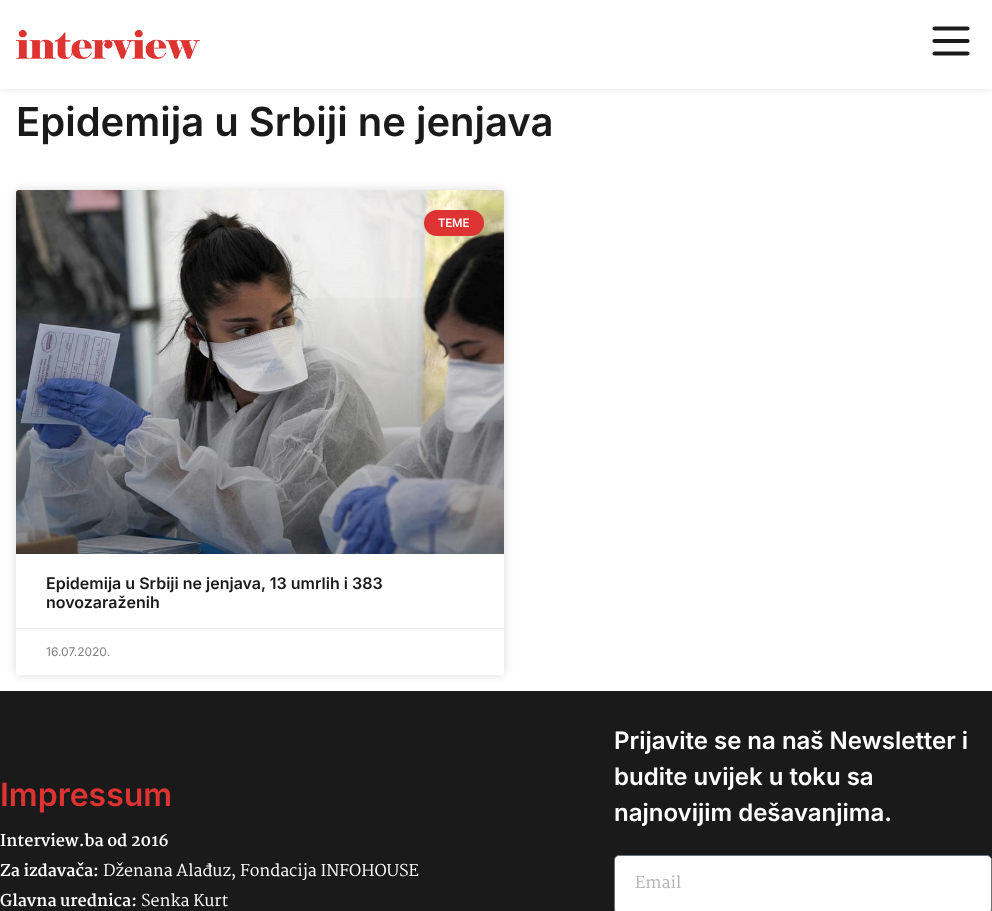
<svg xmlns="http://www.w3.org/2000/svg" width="992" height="911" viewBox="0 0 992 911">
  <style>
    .t1 { font: 600 40px Inter; fill: #1a1a1a; }
    .t2 { font: 500 12px Roboto; fill: #fff; }
    .t3 { font: 600 16px Inter; fill: #1a1a1a; }
    .t4 { font: 12px Inter; fill: #808080; }
    .t5 { font: 600 32px Inter; fill: #dd3332; }
    .t6 { font: bold 16px Martel; fill: #fff; }
    .t7 { font: 16px Martel; fill: #fff; }
    .t8 { font: 600 24px Inter; fill: #fff; }
    .t9 { font: 16px Martel; fill: #b3b3b3; }
  </style>
  <defs>
    <clipPath id="clip1"><rect x="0" y="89" width="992" height="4"/></clipPath>
    <linearGradient id="g1" gradientUnits="userSpaceOnUse" x1="260" y1="554" x2="260" y2="190"><stop offset="0" stop-color="#000" stop-opacity="0.35"/><stop offset="0.75" stop-color="#000" stop-opacity="0"/></linearGradient>
  </defs>
  <rect width="100%" height="100%" fill="#fff"/>
  <g clip-path="url(#clip1)">
    <rect x="0" y="0" width="992" height="89" fill="#0000001a" filter="blur(5px)"/>
  </g>
  <image x="16" y="29" width="184" height="30" href="images/1.png"/>
  <path d="M934.5 41H967.5M934.5 28.5H967.5M934.5 53.5H967.5" fill="none" stroke="#1a1a1a" stroke-width="4.2" stroke-linecap="round" stroke-linejoin="round"/>
  <text x="16" y="136" class="t1">Epidemija u Srbiji ne jenjava</text>
  <rect x="16" y="190" width="488" height="485" rx="3" fill="#00000026" filter="blur(5px)"/>
  <rect x="16" y="190" width="488" height="485" rx="3" fill="#fff"/>
  <image x="16" y="190" width="488" height="364" href="images/2.png"/>
  <rect x="16" y="298" width="488" height="256" fill="url(#g1)"/>
  <rect x="424" y="210" width="60" height="26" rx="13" fill="#dd3332"/>
  <text x="438" y="227" class="t2">TEME</text>
  <text x="46" y="589" class="t3">Epidemija u Srbiji ne jenjava, 13 umrlih i 383</text>
  <text x="46" y="608" class="t3">novozaraženih</text>
  <rect x="16" y="628" width="488" height="1" fill="#eaeaea"/>
  <text x="46" y="656" class="t4">16.07.2020.</text>
  <rect x="0" y="691" width="992" height="220" fill="#1a1a1a"/>
  <text x="0" y="806" class="t5">Impressum</text>
  <text x="0" y="846" class="t6">Interview.ba od 2016</text>
  <text x="0" y="876" class="t6">Za izdavača:</text>
  <text x="103" y="876" class="t7">Dženana Alađuz, Fondacija INFOHOUSE</text>
  <text x="0" y="906" class="t6">Glavna urednica:</text>
  <text x="141" y="906" class="t7">Senka Kurt</text>
  <text x="614" y="749" class="t8">Prijavite se na naš Newsletter i</text>
  <text x="614" y="785" class="t8">budite uvijek u toku sa</text>
  <text x="614" y="821" class="t8">najnovijim dešavanjima.</text>
  <rect x="614.5" y="855.5" width="377" height="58" rx="4.5" fill="#fff" stroke="#69727d"/>
  <text x="635" y="888" class="t9">Email</text>
</svg>
